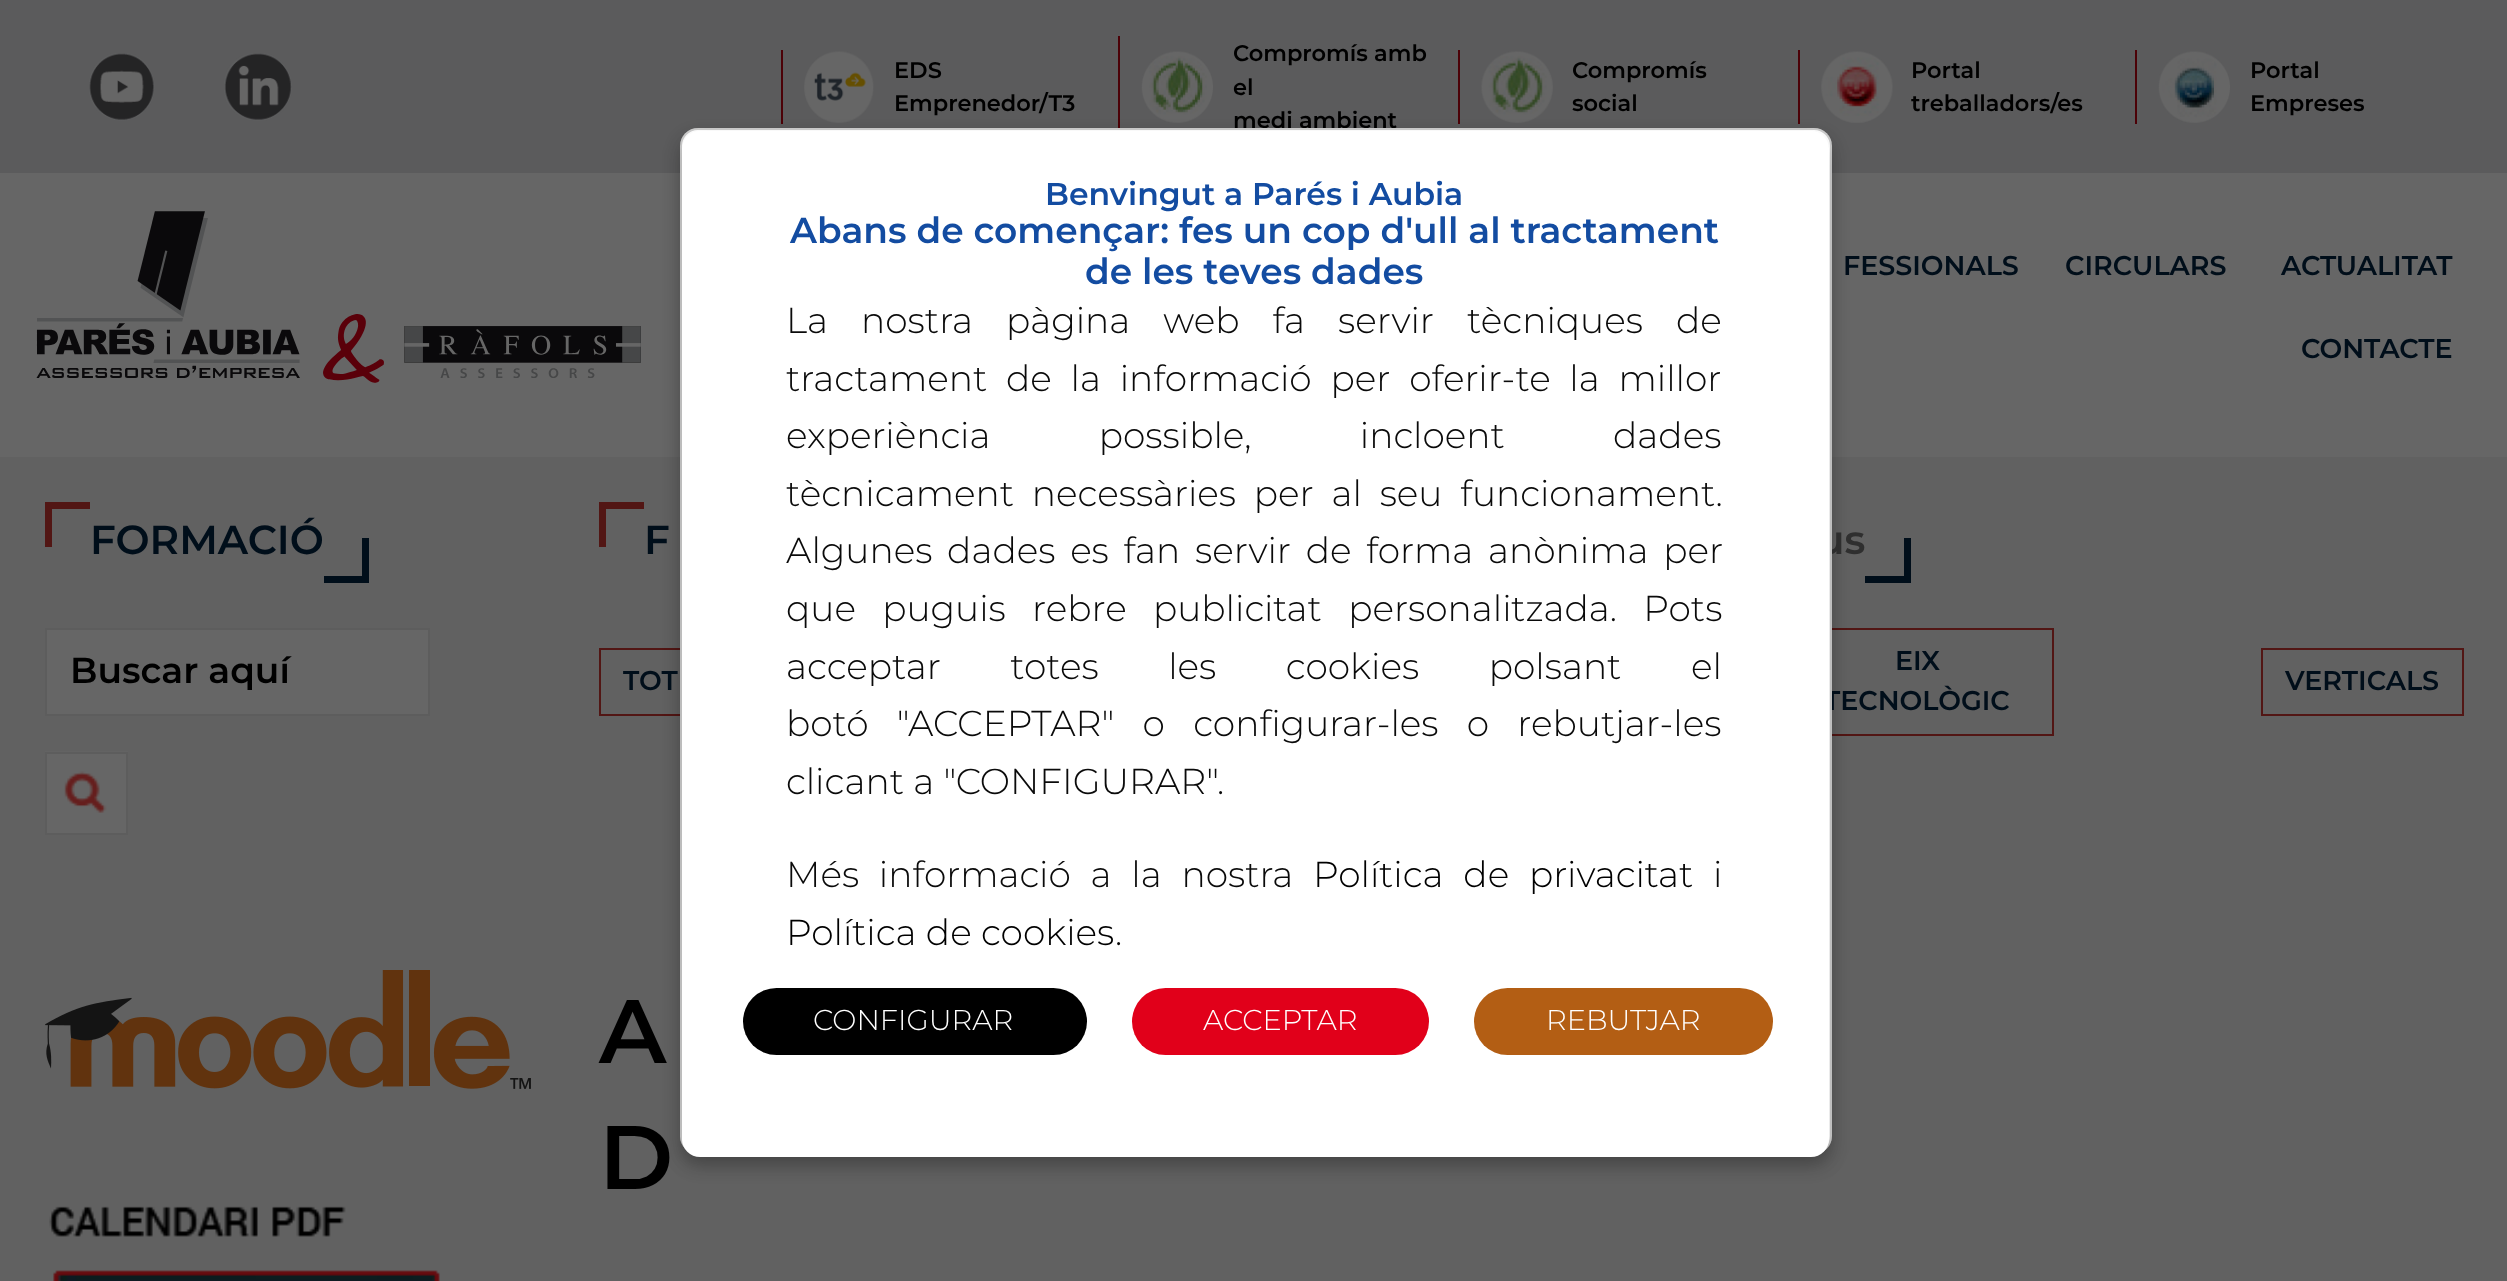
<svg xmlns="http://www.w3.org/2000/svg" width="2507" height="1281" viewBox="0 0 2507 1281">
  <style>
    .t1 { font: 600 22.5px Montserrat; fill: #000; }
    .t2 { font: 600 27px Montserrat; fill: #000e1a; }
    .t3 { font: 600 40.5px Montserrat; fill: #2f2f2f; }
    .t4 { font: 600 31.5px Montserrat; fill: #134ca1; }
    .t5 { font: 600 36px Montserrat; fill: #134ca1; }
    .t6 { font: 300 36px Montserrat; fill: #0a0a0a; }
    .t7 { font: 300 36px Montserrat; fill: #000; }
    .t8 { font: 300 28.75px Montserrat; fill: #fff; }
    .t9 { font: 600 40.5px Montserrat; fill: #000e1a; }
    .t10 { font: 600 36px Montserrat; fill: #000; }
    .t11 { font: 600 90px Montserrat; fill: #000; }
  </style>
  <rect width="100%" height="100%" fill="#666"/>
  <rect x="0" y="0" width="2507" height="173" fill="#5b5b5c"/>
  <image x="89" y="53" width="66" height="68" href="images/1.png"/>
  <image x="224" y="53" width="68" height="68" href="images/2.png"/>
  <rect x="781" y="50" width="2" height="74" fill="#4c0107"/>
  <image x="804" y="51" width="70" height="72" href="images/3.png"/>
  <text x="894" y="78" class="t1">EDS</text>
  <text x="894" y="111" class="t1">Emprenedor/T3</text>
  <rect x="1118" y="36" width="2" height="92" fill="#4c0107"/>
  <image x="1141" y="51" width="72" height="72" href="images/4.png"/>
  <text x="1233" y="61" class="t1">Compromís amb</text>
  <text x="1233" y="95" class="t1">el</text>
  <text x="1233" y="128" class="t1">medi ambient</text>
  <rect x="1458" y="50" width="2" height="74" fill="#4c0107"/>
  <image x="1481" y="51" width="72" height="72" href="images/5.png"/>
  <text x="1572" y="78" class="t1">Compromís</text>
  <text x="1572" y="111" class="t1">social</text>
  <rect x="1798" y="50" width="2" height="74" fill="#4c0107"/>
  <image x="1821" y="51" width="72" height="72" href="images/6.png"/>
  <text x="1911" y="78" class="t1">Portal</text>
  <text x="1911" y="111" class="t1">treballadors/es</text>
  <rect x="2135" y="50" width="2" height="74" fill="#4c0107"/>
  <image x="2158" y="51" width="72" height="72" href="images/7.png"/>
  <text x="2250" y="78" class="t1">Portal</text>
  <text x="2250" y="111" class="t1">Empreses</text>
  <image x="36" y="211" width="605" height="172" href="images/8.png"/>
  <text x="1843" y="275" class="t2">FESSIONALS</text>
  <text x="2065" y="275" class="t2">CIRCULARS</text>
  <text x="2281" y="275" class="t2">ACTUALITAT</text>
  <text x="2301" y="358" class="t2">CONTACTE</text>
  <rect x="0" y="457" width="2507" height="824" fill="#616161"/>
  <rect x="600" y="649" width="119" height="66" fill="none" stroke="#521614" stroke-width="2"/>
  <rect x="1781" y="629" width="272" height="106" fill="none" stroke="#521614" stroke-width="2"/>
  <rect x="680" y="137" width="1152" height="1026" rx="18" fill="#00000029" filter="blur(9px)"/>
  <text x="1817" y="554" class="t3">us</text>
  <text x="1824" y="710" class="t2">TECNOLÒGIC</text>
  <rect x="680" y="128" width="1152" height="1026" rx="18" fill="#fff"/>
  <rect x="681" y="129" width="1150" height="1024" rx="17" fill="none" stroke="#00000033" stroke-width="2"/>
  <rect x="682" y="140" width="1147" height="1026" rx="18" fill="#00000029" filter="blur(9px)"/>
  <rect x="682" y="131" width="1147" height="1026" rx="18" fill="#fff"/>
  <text x="1045" y="205" class="t4">Benvingut a Parés i Aubia</text>
  <text x="790" y="243" class="t5">Abans de començar: fes un cop d'ull al tractament</text>
  <text x="1085" y="284" class="t5">de les teves dades</text>
  <text x="786" y="333" word-spacing="23.75" class="t6">La nostra pàgina web fa servir tècniques de</text>
  <text x="786" y="391" word-spacing="9.5" class="t6">tractament de la informació per oferir-te la millor</text>
  <text x="786" y="448" word-spacing="99" class="t6">experiència possible, incloent dades</text>
  <text x="786" y="506" word-spacing="8.5" class="t6">tècnicament necessàries per al seu funcionament.</text>
  <text x="786" y="563" word-spacing="5.5" class="t6">Algunes dades es fan servir de forma anònima per</text>
  <text x="786" y="621" word-spacing="17" class="t6">que puguis rebre publicitat personalitzada. Pots</text>
  <text x="786" y="679" word-spacing="60.25" class="t6">acceptar totes les cookies polsant el</text>
  <text x="786" y="736" word-spacing="19" class="t6">botó "ACCEPTAR" o configurar-les o rebutjar-les</text>
  <text x="786" y="794" class="t6">clicant a "CONFIGURAR".</text>
  <text x="786" y="887" word-spacing="10.5" class="t6">Més informació a la nostra</text>
  <text x="1313" y="887" word-spacing="10.5" class="t7">Política de privacitat</text>
  <text x="1713" y="887" class="t6">i</text>
  <text x="786" y="945" class="t7">Política de cookies</text>
  <text x="1115" y="945" class="t6">.</text>
  <rect x="743" y="988" width="344" height="67" rx="33.5" fill="#000"/>
  <text x="813" y="1030" class="t8">CONFIGURAR</text>
  <rect x="1132" y="988" width="297" height="67" rx="33.5" fill="#e1001a"/>
  <text x="1203" y="1030" class="t8">ACCEPTAR</text>
  <rect x="1474" y="988" width="299" height="67" rx="33.5" fill="#b35e14"/>
  <text x="1546" y="1030" class="t8">REBUTJAR</text>
  <rect x="45" y="502" width="45" height="7" fill="#521614"/>
  <rect x="45" y="502" width="7" height="45" fill="#521614"/>
  <text x="90" y="554" class="t9">FORMACIÓ</text>
  <rect x="362" y="538" width="7" height="45" fill="#000e1a"/>
  <rect x="324" y="576" width="45" height="7" fill="#000e1a"/>
  <rect x="46" y="629" width="383" height="86" fill="#666" stroke="#5d5d5d" stroke-width="2"/>
  <text x="70" y="683" class="t10">Buscar aquí</text>
  <rect x="47" y="813" width="79" height="20" fill="#666"/>
  <image x="45" y="751" width="83" height="62" href="images/9.png"/>
  <rect x="46" y="753" width="81" height="81" fill="none" stroke="#5d5d5d" stroke-width="2"/>
  <rect x="599" y="502" width="45" height="7" fill="#521614"/>
  <rect x="599" y="502" width="7" height="45" fill="#521614"/>
  <text x="644" y="554" class="t9">F</text>
  <rect x="1904" y="538" width="7" height="45" fill="#000e1a"/>
  <rect x="1865" y="576" width="45" height="7" fill="#000e1a"/>
  <text x="623" y="690" class="t2">TOT</text>
  <text x="1895" y="670" class="t2">EIX</text>
  <rect x="2262" y="649" width="201" height="66" fill="none" stroke="#521614" stroke-width="2"/>
  <text x="2285" y="690" class="t2">VERTICALS</text>
  <image x="45" y="970" width="486" height="119" href="images/10.png"/>
  <image x="49" y="1206" width="391" height="75" href="images/11.png"/>
  <text x="599" y="1063" class="t11">A</text>
  <text x="599" y="1189" class="t11">D</text>
</svg>
